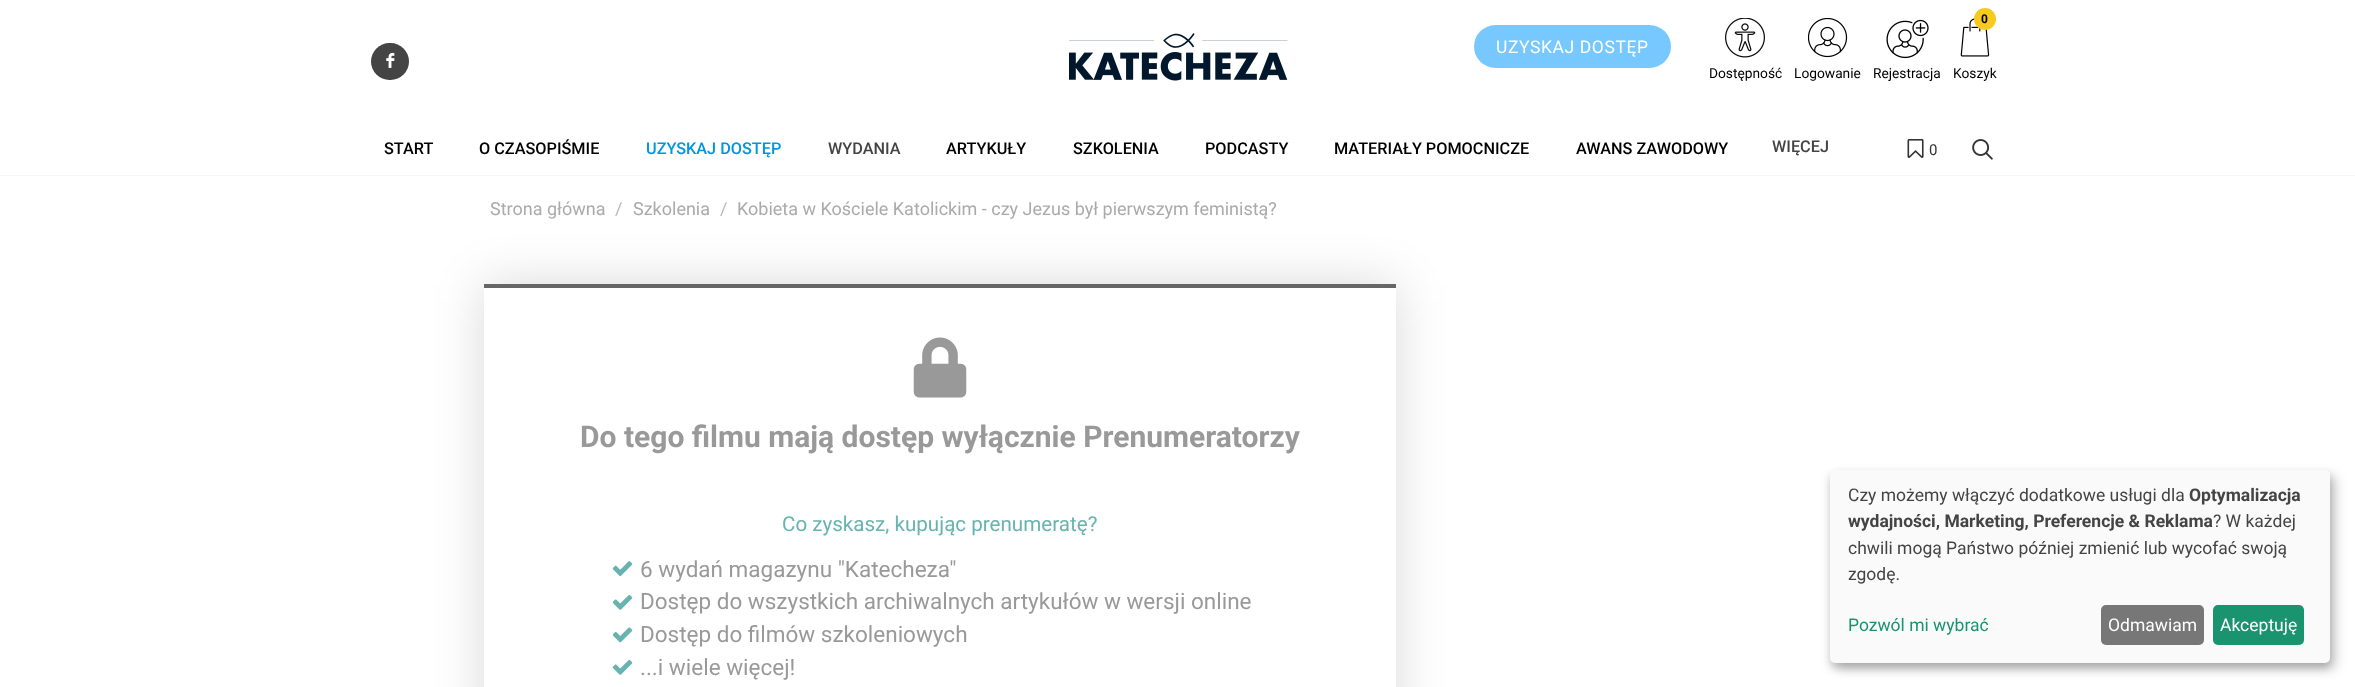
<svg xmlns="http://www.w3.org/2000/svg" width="2355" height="687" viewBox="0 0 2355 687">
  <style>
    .t1 { font: 17.5px Roboto; letter-spacing: 0.6px; fill: #fff; }
    .t2 { font: 13.75px Roboto; fill: #000; }
    .t3 { font: bold 12px Roboto; fill: #000; }
    .t4 { font: 500 16.25px Roboto; fill: #000; }
    .t5 { font: 500 16.25px Roboto; fill: #0096e0; }
    .t6 { font: 500 16.25px Roboto; fill: #444; }
    .t7 { font: 15px Roboto; fill: #333; }
    .t8 { font: 18px Roboto; fill: #aaa; }
    .t9 { font: 18px Roboto; fill: #b6babe; }
    .t10 { font: bold 30px Roboto; fill: #999; }
    .t11 { font: 20.6px Roboto; fill: #68b3b0; }
    .t12 { font: 22.5px Roboto; fill: #999; }
    .t13 { font: 17.5px Roboto; fill: #444; }
    .t14 { font: bold 17.5px Roboto; fill: #444; }
    .t15 { font: 17.5px Roboto; fill: #1a936f; }
    .t16 { font: 17.5px Roboto; fill: #fff; }
  </style>
  <defs>
    <clipPath id="clip1"><path d="M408 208H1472V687H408ZM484 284H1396V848H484Z" clip-rule="evenodd"/></clipPath>
  </defs>
  <rect width="100%" height="100%" fill="#fff"/>
  <rect x="0" y="175" width="2355" height="1" fill="#f5f5f5"/>
  <rect x="371" y="43" width="38" height="37" rx="18.5" fill="#444"/>
  <image x="386" y="52" width="9" height="16" href="images/1.png"/>
  <image x="1069" y="33" width="219" height="48" href="images/2.png"/>
  <rect x="1474" y="25" width="197" height="43" rx="21.5" fill="#76c8ff"/>
  <text x="1496" y="53" class="t1">UZYSKAJ DOSTĘP</text>
  <image x="1725" y="18" width="40" height="40" href="images/3.png"/>
  <text x="1709" y="78" class="t2">Dostępność</text>
  <image x="1808" y="18" width="40" height="40" href="images/4.png"/>
  <text x="1794" y="78" class="t2">Logowanie</text>
  <image x="1886" y="19" width="43" height="40" href="images/5.png"/>
  <text x="1873" y="78" class="t2">Rejestracja</text>
  <image x="1960" y="18" width="30" height="39" href="images/6.png"/>
  <circle cx="1985" cy="19" r="11" fill="#f6cb1d"/>
  <text x="1981" y="23" class="t3">0</text>
  <text x="1953" y="78" class="t2">Koszyk</text>
  <text x="384" y="154" class="t4">START</text>
  <text x="479" y="154" class="t4">O CZASOPIŚMIE</text>
  <text x="646" y="154" class="t5">UZYSKAJ DOSTĘP</text>
  <text x="828" y="154" class="t6">WYDANIA</text>
  <text x="946" y="154" class="t4">ARTYKUŁY</text>
  <text x="1073" y="154" class="t4">SZKOLENIA</text>
  <text x="1205" y="154" class="t4">PODCASTY</text>
  <text x="1334" y="154" class="t4">MATERIAŁY POMOCNICZE</text>
  <text x="1576" y="154" class="t4">AWANS ZAWODOWY</text>
  <text x="1772" y="152" class="t6">WIĘCEJ</text>
  <image x="1907" y="139" width="17" height="19" href="images/7.png"/>
  <text x="1929" y="155" class="t7">0</text>
  <image x="1972" y="139" width="21" height="21" href="images/8.png"/>
  <text x="490" y="215" class="t8">Strona główna</text>
  <text x="615" y="215" class="t9">/</text>
  <text x="633" y="215" class="t8">Szkolenia</text>
  <text x="720" y="215" class="t9">/</text>
  <text x="737" y="215" class="t8">Kobieta w Kościele Katolickim - czy Jezus był pierwszym feministą?</text>
  <g clip-path="url(#clip1)">
    <rect x="484" y="284" width="912" height="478" fill="#00000026" filter="blur(25px)"/>
  </g>
  <rect x="484" y="284" width="912" height="4" fill="#666"/>
  <image x="913" y="337" width="54" height="61" href="images/9.png"/>
  <text x="580" y="447" class="t10">Do tego filmu mają dostęp wyłącznie Prenumeratorzy</text>
  <text x="782" y="531" class="t11">Co zyskasz, kupując prenumeratę?</text>
  <image x="612" y="561" width="21" height="16" href="images/10.png"/>
  <text x="640" y="577" class="t12">6 wydań magazynu "Katecheza"</text>
  <image x="612" y="594" width="21" height="16" href="images/11.png"/>
  <text x="640" y="609" class="t12">Dostęp do wszystkich archiwalnych artykułów w wersji online</text>
  <image x="612" y="627" width="21" height="16" href="images/12.png"/>
  <text x="640" y="642" class="t12">Dostęp do filmów szkoleniowych</text>
  <image x="612" y="659" width="21" height="16" href="images/11.png"/>
  <text x="640" y="675" class="t12">...i wiele więcej!</text>
  <rect x="1836" y="476" width="500" height="193" rx="5" fill="#00000030" filter="blur(6px)"/>
  <rect x="1830" y="475" width="500" height="193" rx="5" fill="#00000033" filter="blur(4px)"/>
  <rect x="1830" y="470" width="500" height="193" rx="5" fill="#fafafa"/>
  <text x="1848" y="501" class="t13">Czy możemy włączyć dodatkowe usługi dla</text>
  <text x="2189" y="501" class="t14">Optymalizacja</text>
  <text x="1848" y="527" class="t14">wydajności, Marketing, Preferencje &amp; Reklama</text>
  <text x="2213" y="527" class="t13">? W każdej</text>
  <text x="1848" y="554" class="t13">chwili mogą Państwo później zmienić lub wycofać swoją</text>
  <text x="1848" y="580" class="t13">zgodę.</text>
  <text x="1848" y="631" class="t15">Pozwól mi wybrać</text>
  <rect x="2101" y="605" width="103" height="40" rx="5" fill="#777"/>
  <text x="2108" y="631" class="t16">Odmawiam</text>
  <rect x="2213" y="605" width="91" height="40" rx="5" fill="#1a936f"/>
  <text x="2220" y="631" class="t16">Akceptuję</text>
</svg>
